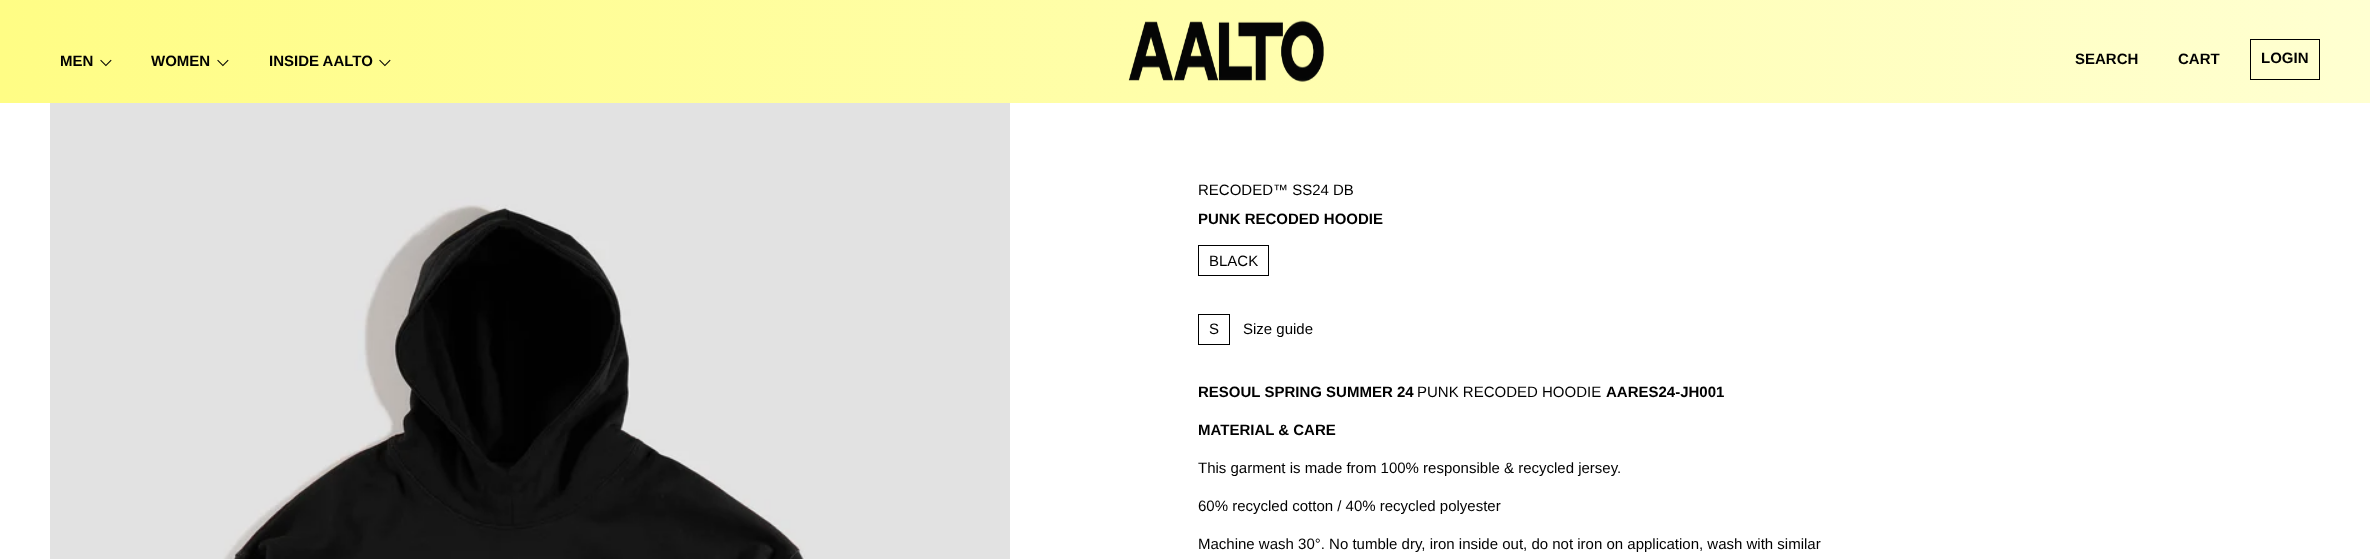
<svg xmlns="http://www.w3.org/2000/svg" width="2370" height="559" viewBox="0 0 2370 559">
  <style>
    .t1 { font: bold 15px Liberation Sans; fill: #000; }
    .t2 { font: bold 15px FreeSerif; fill: #000; }
    .t3 { font: 15px Liberation Sans; fill: #000; }
  </style>
  <defs>
    <linearGradient id="g1" gradientUnits="userSpaceOnUse" x1="0" y1="51" x2="2370" y2="51"><stop offset="0" stop-color="#fffd85"/><stop offset="1" stop-color="#ffffd1"/></linearGradient>
  </defs>
  <rect width="100%" height="100%" fill="#fff"/>
  <rect x="0" y="0" width="2370" height="103" fill="url(#g1)"/>
  <text x="60" y="66" class="t1">MEN</text>
  <text x="100" y="66" class="t2">⌵</text>
  <text x="151" y="66" class="t1">WOMEN</text>
  <text x="217" y="66" class="t2">⌵</text>
  <text x="269" y="66" class="t1">INSIDE AALTO</text>
  <text x="379" y="66" class="t2">⌵</text>
  <image x="1128" y="20" width="196" height="62" href="images/1.png"/>
  <text x="2075" y="64" class="t1">SEARCH</text>
  <text x="2178" y="64" class="t1">CART</text>
  <rect x="2250.5" y="39.5" width="69" height="40" fill="none" stroke="#000"/>
  <text x="2261" y="63" class="t1">LOGIN</text>
  <image x="50" y="103" width="960" height="456" href="images/2.png"/>
  <text x="1198" y="195" class="t3">RECODED™ SS24 DB</text>
  <text x="1198" y="224" class="t1">PUNK RECODED HOODIE</text>
  <rect x="1198.5" y="245.5" width="70" height="30" fill="none" stroke="#000"/>
  <text x="1209" y="266" class="t3">BLACK</text>
  <rect x="1198.5" y="314.5" width="31" height="30" fill="none" stroke="#000"/>
  <text x="1209" y="334" class="t3">S</text>
  <text x="1243" y="334" class="t3">Size guide</text>
  <text x="1198" y="397" class="t1">RESOUL SPRING SUMMER 24</text>
  <text x="1417" y="397" class="t3">PUNK RECODED HOODIE</text>
  <text x="1606" y="397" class="t1">AARES24-JH001</text>
  <text x="1198" y="435" class="t1">MATERIAL &amp; CARE</text>
  <text x="1198" y="473" class="t3">This garment is made from 100% responsible &amp; recycled jersey.</text>
  <text x="1198" y="511" class="t3">60% recycled cotton / 40% recycled polyester</text>
  <text x="1198" y="549" class="t3">Machine wash 30°. No tumble dry, iron inside out, do not iron on application, wash with similar</text>
</svg>
